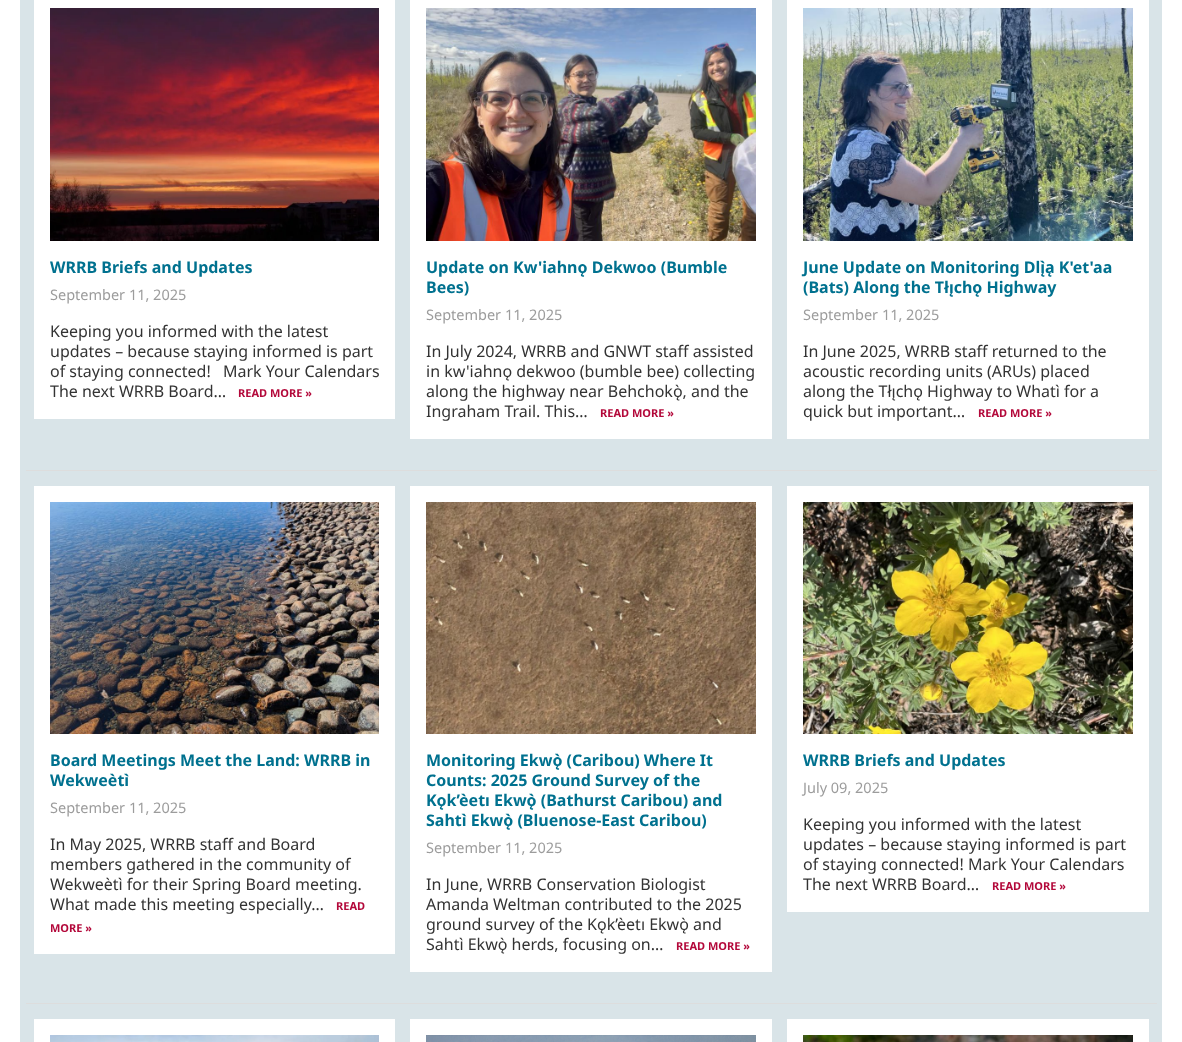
<svg xmlns="http://www.w3.org/2000/svg" width="1182" height="1042" viewBox="0 0 1182 1042">
  <style>
    .t1 { font: bold 16px Noto Sans; fill: #00718f; }
    .t2 { font: 14.5px Noto Sans; fill: #9c9c9c; }
    .t3 { font: 16px Noto Sans; fill: #333; }
    .t4 { font: bold 11px Noto Sans; fill: #b3083a; }
  </style>
  <rect width="100%" height="100%" fill="#fff"/>
  <rect x="20" y="0" width="1142" height="1042" fill="#d9e4e8"/>
  <rect x="34" y="0" width="361" height="419" fill="#fff"/>
  <image x="50" y="8" width="329" height="233" href="images/1.png"/>
  <text x="50" y="273" class="t1">WRRB Briefs and Updates</text>
  <text x="50" y="300" class="t2">September 11, 2025</text>
  <text x="50" y="337" class="t3">Keeping you informed with the latest</text>
  <text x="50" y="357" class="t3">updates – because staying informed is part</text>
  <text x="50" y="377" class="t3">of staying connected!</text>
  <text x="223" y="377" class="t3">Mark Your Calendars</text>
  <text x="50" y="397" class="t3">The next WRRB Board…</text>
  <text x="238" y="397" class="t4">READ MORE »</text>
  <rect x="410" y="0" width="362" height="439" fill="#fff"/>
  <image x="426" y="8" width="330" height="233" href="images/2.png"/>
  <text x="426" y="273" class="t1">Update on Kw'iahnǫ Dekwoo (Bumble</text>
  <text x="426" y="293" class="t1">Bees)</text>
  <text x="426" y="320" class="t2">September 11, 2025</text>
  <text x="426" y="357" class="t3">In July 2024, WRRB and GNWT staff assisted</text>
  <text x="426" y="377" class="t3">in kw'iahnǫ dekwoo (bumble bee) collecting</text>
  <text x="426" y="397" class="t3">along the highway near Behchokǫ̀, and the</text>
  <text x="426" y="417" class="t3">Ingraham Trail. This…</text>
  <text x="600" y="417" class="t4">READ MORE »</text>
  <rect x="787" y="0" width="362" height="439" fill="#fff"/>
  <image x="803" y="8" width="330" height="233" href="images/3.png"/>
  <text x="803" y="273" class="t1">June Update on Monitoring Dlı̨̀ą K'et'aa</text>
  <text x="803" y="293" class="t1">(Bats) Along the Tłı̨chǫ Highway</text>
  <text x="803" y="320" class="t2">September 11, 2025</text>
  <text x="803" y="357" class="t3">In June 2025, WRRB staff returned to the</text>
  <text x="803" y="377" class="t3">acoustic recording units (ARUs) placed</text>
  <text x="803" y="397" class="t3">along the Tłı̨chǫ Highway to Whatì for a</text>
  <text x="803" y="417" class="t3">quick but important…</text>
  <text x="978" y="417" class="t4">READ MORE »</text>
  <rect x="26" y="470" width="1131" height="1" fill="#ddd"/>
  <rect x="34" y="486" width="361" height="468" fill="#fff"/>
  <image x="50" y="502" width="329" height="232" href="images/4.png"/>
  <text x="50" y="766" class="t1">Board Meetings Meet the Land: WRRB in</text>
  <text x="50" y="786" class="t1">Wekweètì</text>
  <text x="50" y="813" class="t2">September 11, 2025</text>
  <text x="50" y="850" class="t3">In May 2025, WRRB staff and Board</text>
  <text x="50" y="870" class="t3">members gathered in the community of</text>
  <text x="50" y="890" class="t3">Wekweètì for their Spring Board meeting.</text>
  <text x="50" y="910" class="t3">What made this meeting especially…</text>
  <text x="336" y="910" class="t4">READ</text>
  <text x="50" y="932" class="t4">MORE »</text>
  <rect x="410" y="486" width="362" height="486" fill="#fff"/>
  <image x="426" y="502" width="330" height="232" href="images/5.png"/>
  <text x="426" y="766" class="t1">Monitoring Ekwǫ̀ (Caribou) Where It</text>
  <text x="426" y="786" class="t1">Counts: 2025 Ground Survey of the</text>
  <text x="426" y="806" class="t1">Kǫk’èetı Ekwǫ̀ (Bathurst Caribou) and</text>
  <text x="426" y="826" class="t1">Sahtì Ekwǫ̀ (Bluenose-East Caribou)</text>
  <text x="426" y="853" class="t2">September 11, 2025</text>
  <text x="426" y="890" class="t3">In June, WRRB Conservation Biologist</text>
  <text x="426" y="910" class="t3">Amanda Weltman contributed to the 2025</text>
  <text x="426" y="930" class="t3">ground survey of the Kǫk’èetı Ekwǫ̀ and</text>
  <text x="426" y="950" class="t3">Sahtì Ekwǫ̀ herds, focusing on…</text>
  <text x="676" y="950" class="t4">READ MORE »</text>
  <rect x="787" y="486" width="362" height="426" fill="#fff"/>
  <image x="803" y="502" width="330" height="232" href="images/6.png"/>
  <text x="803" y="766" class="t1">WRRB Briefs and Updates</text>
  <text x="803" y="793" class="t2">July 09, 2025</text>
  <text x="803" y="830" class="t3">Keeping you informed with the latest</text>
  <text x="803" y="850" class="t3">updates – because staying informed is part</text>
  <text x="803" y="870" class="t3">of staying connected! Mark Your Calendars</text>
  <text x="803" y="890" class="t3">The next WRRB Board…</text>
  <text x="992" y="890" class="t4">READ MORE »</text>
  <rect x="26" y="1003" width="1131" height="1" fill="#ddd"/>
  <rect x="34" y="1019" width="361" height="23" fill="#fff"/>
  <image x="50" y="1035" width="329" height="7" href="images/7.png"/>
  <rect x="410" y="1019" width="362" height="23" fill="#fff"/>
  <image x="426" y="1035" width="330" height="7" href="images/8.png"/>
  <rect x="787" y="1019" width="362" height="23" fill="#fff"/>
  <image x="803" y="1035" width="330" height="7" href="images/9.png"/>
</svg>
